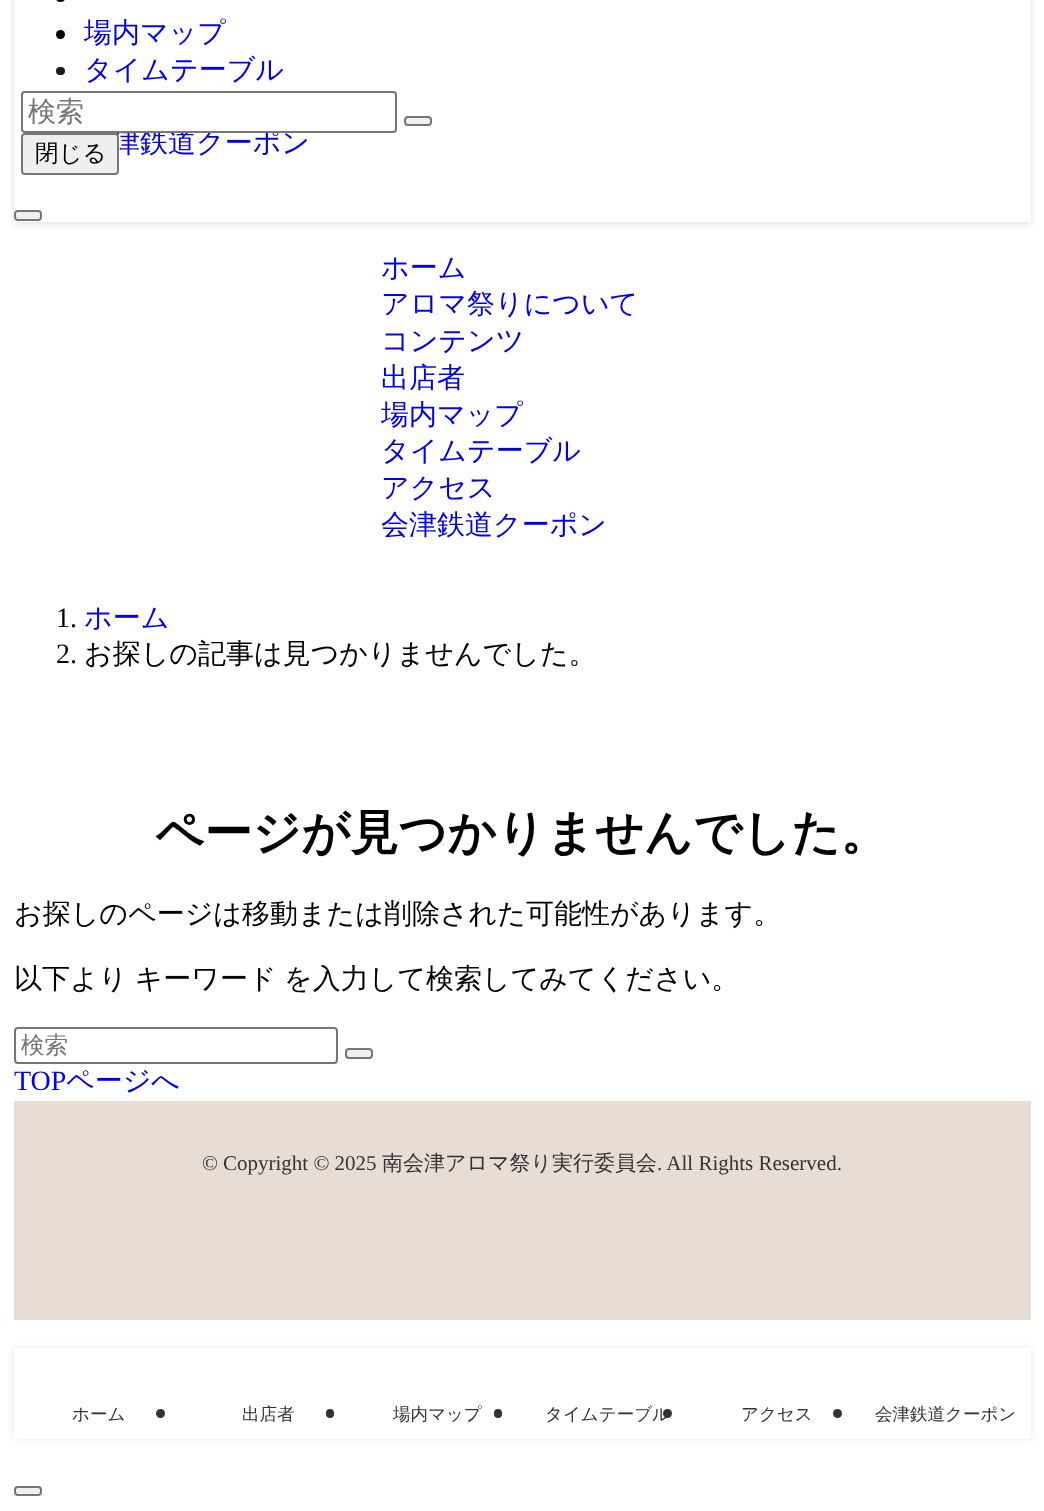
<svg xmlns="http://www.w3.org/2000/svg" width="1044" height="1511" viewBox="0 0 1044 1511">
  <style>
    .t1 { font: 500 28px WenQuanYi Zen Hei; fill: #00e; }
    .t2 { font: 500 28px WenQuanYi Zen Hei; fill: #757575; }
    .t3 { font: 500 23.5px WenQuanYi Zen Hei; fill: #000; }
    .t4 { font: 28px Liberation Serif; fill: #000; }
    .t5 { font: 500 28px WenQuanYi Zen Hei; fill: #000; }
    .t6 { font: bold 48px WenQuanYi Zen Hei; fill: #000; }
    .t7 { font: 500 23.5px WenQuanYi Zen Hei; fill: #757575; }
    .t8 { font: 28px Liberation Serif; fill: #00e; }
    .t9 { font: 21px Liberation Serif; fill: #333; }
    .t10 { font: 500 21px WenQuanYi Zen Hei; fill: #333; }
    .t11 { font: 500 17.5px WenQuanYi Zen Hei; fill: #333; }
  </style>
  <defs>
    <clipPath id="clip1"><path d="M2 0H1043V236H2ZM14-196H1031V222H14Z" clip-rule="evenodd"/></clipPath>
    <clipPath id="clip2"><path d="M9 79H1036V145H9ZM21 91H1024V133H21Z" clip-rule="evenodd"/></clipPath>
    <clipPath id="clip3"><path d="M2 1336H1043V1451H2ZM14 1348H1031V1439H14Z" clip-rule="evenodd"/></clipPath>
  </defs>
  <rect width="100%" height="100%" fill="#fff"/>
  <g clip-path="url(#clip1)">
    <rect x="14" y="-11" width="1017" height="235" fill="#0000001f" filter="blur(3.5px)"/>
  </g>
  <rect x="56" y="67" width="9" height="8" rx="4" fill="#000"/>
  <rect x="56" y="63" width="251" height="93" fill="#ffffff1a"/>
  <g clip-path="url(#clip2)">
    <rect x="21" y="91" width="1003" height="42" fill="#ffffff33" filter="blur(3.5px)"/>
  </g>
  <text x="112" y="152" class="t1">津鉄道クーポン</text>
  <rect x="22" y="92" width="374" height="40" rx="3" fill="#fff" stroke="#767676" stroke-width="2"/>
  <text x="28" y="121" class="t2">検索</text>
  <rect x="405" y="117" width="26" height="8" rx="3" fill="#efefef" stroke="#767676" stroke-width="2"/>
  <rect x="22" y="134" width="96" height="40" rx="3" fill="#efefef" stroke="#767676" stroke-width="2"/>
  <text x="35" y="161" class="t3">閉じる</text>
  <rect x="56" y="-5" width="9" height="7" rx="4.5" fill="#000"/>
  <circle cx="60.5" cy="34.5" r="4.5" fill="#000"/>
  <text x="84" y="42" class="t1">場内マップ</text>
  <text x="84" y="79" class="t1">タイムテーブル</text>
  <rect x="15" y="211" width="26" height="9" rx="3" fill="#efefef" stroke="#767676" stroke-width="2"/>
  <text x="381" y="277" class="t1">ホーム</text>
  <text x="381" y="313" class="t1">アロマ祭りについて</text>
  <text x="381" y="350" class="t1">コンテンツ</text>
  <text x="381" y="387" class="t1">出店者</text>
  <text x="381" y="424" class="t1">場内マップ</text>
  <text x="381" y="460" class="t1">タイムテーブル</text>
  <text x="381" y="497" class="t1">アクセス</text>
  <text x="381" y="534" class="t1">会津鉄道クーポン</text>
  <text x="56" y="627" class="t4">1.</text>
  <text x="84" y="627" class="t1">ホーム</text>
  <text x="56" y="663" class="t4">2.</text>
  <text x="84" y="663" class="t5">お探しの記事は見つかりませんでした。</text>
  <text x="155" y="849" class="t6">ページが見つかりませんでした。</text>
  <text x="14" y="923" class="t5">お探しのページは移動または削除された可能性があります。</text>
  <text x="14" y="988" word-spacing="-1" class="t5">以下より キーワード を入力して検索してみてください。</text>
  <rect x="15" y="1028" width="322" height="35" rx="3" fill="none" stroke="#767676" stroke-width="2"/>
  <text x="21" y="1053" class="t7">検索</text>
  <rect x="346" y="1049" width="26" height="9" rx="3" fill="#efefef" stroke="#767676" stroke-width="2"/>
  <text x="14" y="1090" class="t8">TOP</text>
  <text x="66" y="1090" class="t1">ページへ</text>
  <rect x="14" y="1101" width="1017" height="219" fill="#e8ddd4"/>
  <text x="202" y="1170" class="t9">©</text>
  <text x="223" y="1170" class="t9">Copyright © 2025</text>
  <text x="382" y="1170" class="t10">南会津アロマ祭り実行委員会</text>
  <text x="657" y="1170" class="t9">. All Rights Reserved.</text>
  <g clip-path="url(#clip3)">
    <rect x="14" y="1348" width="1017" height="91" fill="#0000001a" filter="blur(3.5px)"/>
  </g>
  <text x="72" y="1420" class="t11">ホーム</text>
  <circle cx="160.5" cy="1413.5" r="4.5" fill="#333"/>
  <text x="242" y="1420" class="t11">出店者</text>
  <rect x="326" y="1409" width="8" height="9" rx="4" fill="#333"/>
  <text x="393" y="1420" class="t11">場内マップ</text>
  <rect x="494" y="1409" width="8" height="9" rx="4" fill="#333"/>
  <text x="545" y="1420" class="t11">タイムテーブル</text>
  <circle cx="667.5" cy="1413.5" r="4.5" fill="#333"/>
  <text x="741" y="1420" class="t11">アクセス</text>
  <circle cx="837.5" cy="1413.5" r="4.5" fill="#333"/>
  <text x="875" y="1420" class="t11">会津鉄道クーポン</text>
  <rect x="15" y="1487" width="26" height="8" rx="3" fill="#efefef" stroke="#767676" stroke-width="2"/>
</svg>
